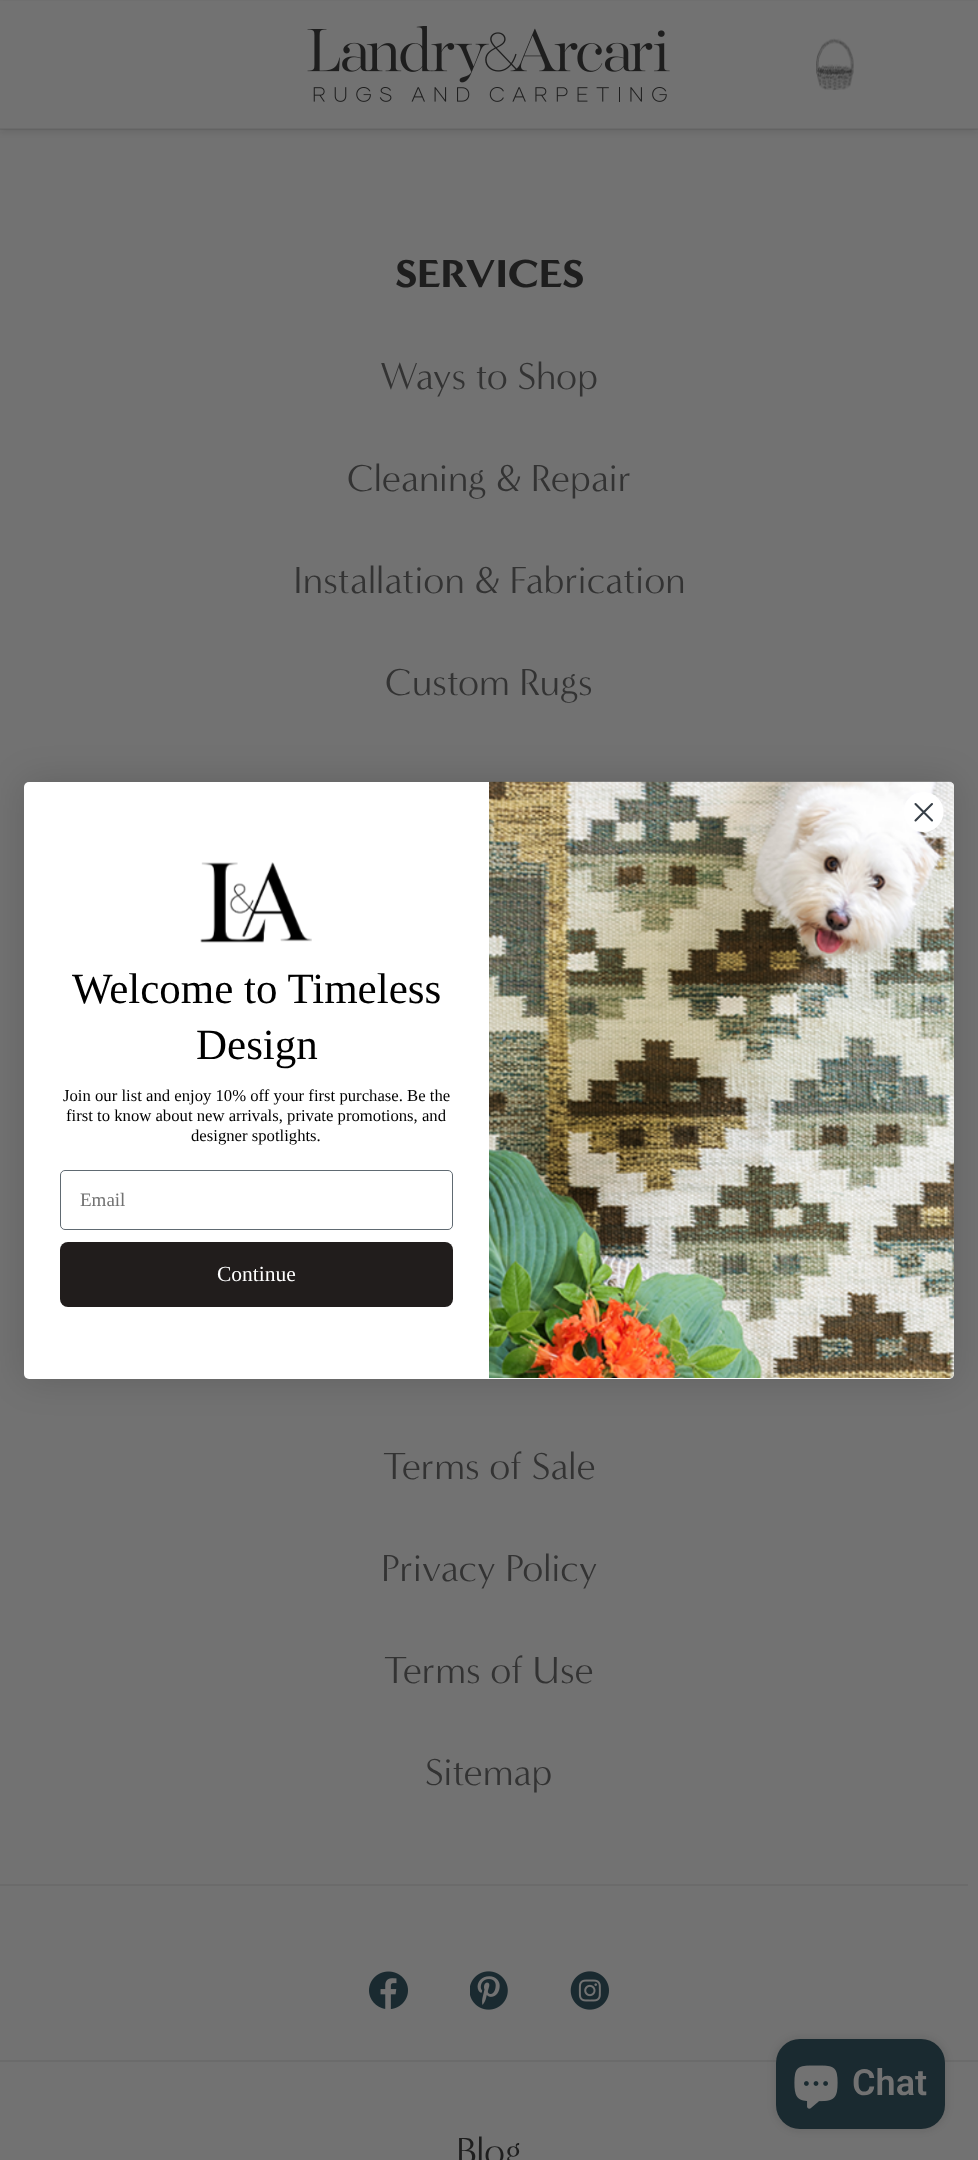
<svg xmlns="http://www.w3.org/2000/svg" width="978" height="2160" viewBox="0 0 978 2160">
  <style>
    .t1 { font: 43px Liberation Serif; fill: #000; }
    .t2 { font: 16.7px Liberation Serif; fill: #000; }
    .t3 { font: 19px Liberation Serif; fill: #727272; }
    .t4 { font: 21.5px Liberation Serif; fill: #fff; }
    .t5 { font: 900 40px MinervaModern; letter-spacing: -0.25px; fill: #1e1e1e; }
    .t6 { font: 38.5px MinervaModern; fill: #333; }
    .t7 { font: 38.5px MinervaModern; letter-spacing: -0.5px; fill: #1e1e1e; }
    .t8 { font: 600 36px Roboto; fill: #727272; }
  </style>
  <rect width="100%" height="100%" fill="#727272"/>
  <rect x="0" y="3" width="978" height="129" fill="#0c0c0c1a" filter="blur(3px)"/>
  <rect x="0" y="1" width="978" height="128" fill="#727272"/>
  <rect x="0" y="128" width="978" height="2" fill="#1e1e1e14"/>
  <image x="307" y="26" width="363" height="76" href="images/1.png"/>
  <image x="816" y="38" width="38" height="52" href="images/2.png"/>
  <rect x="24" y="782" width="930" height="597" rx="5" fill="#00000026" filter="blur(18px)"/>
  <rect x="24" y="782" width="930" height="597" rx="5" fill="#fff"/>
  <image x="489" y="781" width="465" height="597" href="images/4.png"/>
  <circle cx="923.5" cy="812" r="20" fill="#fff"/>
  <path d="M915.5 804L932 820.5M915.5 820.5L932 804Z" fill="none" stroke="#373f47" stroke-width="2.1" stroke-linecap="round" stroke-linejoin="round"/>
  <image x="200" y="862" width="112" height="81" href="images/3.png"/>
  <text x="72" y="1003" class="t1">Welcome to Timeless</text>
  <text x="196" y="1059" class="t1">Design</text>
  <text x="63" y="1101" class="t2">Join our list and enjoy 10% off your first purchase. Be the</text>
  <text x="66" y="1121" class="t2">first to know about new arrivals, private promotions, and</text>
  <text x="191" y="1141" class="t2">designer spotlights.</text>
  <rect x="60.5" y="1170.5" width="392" height="59" rx="4.5" fill="none" stroke="#606a72"/>
  <text x="80" y="1206" class="t3">Email</text>
  <rect x="60" y="1242" width="393" height="65" rx="8" fill="#211d1c"/>
  <text x="217" y="1281" class="t4">Continue</text>
  <text x="395" y="287" class="t5">SERVICES</text>
  <text x="380" y="389" class="t6">Ways to Shop</text>
  <text x="347" y="491" class="t6">Cleaning &amp; Repair</text>
  <text x="293" y="593" class="t6">Installation &amp; Fabrication</text>
  <text x="385" y="695" class="t6">Custom Rugs</text>
  <text x="383" y="1479" class="t6">Terms of Sale</text>
  <text x="381" y="1581" class="t6">Privacy Policy</text>
  <text x="384" y="1683" class="t6">Terms of Use</text>
  <text x="425" y="1785" class="t6">Sitemap</text>
  <rect x="0" y="1884" width="968" height="2" fill="#6b6b6b"/>
  <image x="369" y="1971" width="39" height="38" href="images/5.png"/>
  <image x="470" y="1971" width="38" height="39" href="images/6.png"/>
  <image x="570" y="1971" width="39" height="39" href="images/7.png"/>
  <rect x="0" y="2060" width="978" height="2" fill="#6b6b6b"/>
  <text x="456" y="2164" class="t7">Blog</text>
  <rect x="776" y="2039" width="169" height="90" rx="24" fill="#0c0c0c26" filter="blur(4px)"/>
  <rect x="776" y="2039" width="169" height="90" rx="24" fill="#1a2a30"/>
  <image x="794" y="2065" width="44" height="44" href="images/8.png"/>
  <text x="852" y="2095" class="t8">Chat</text>
</svg>
